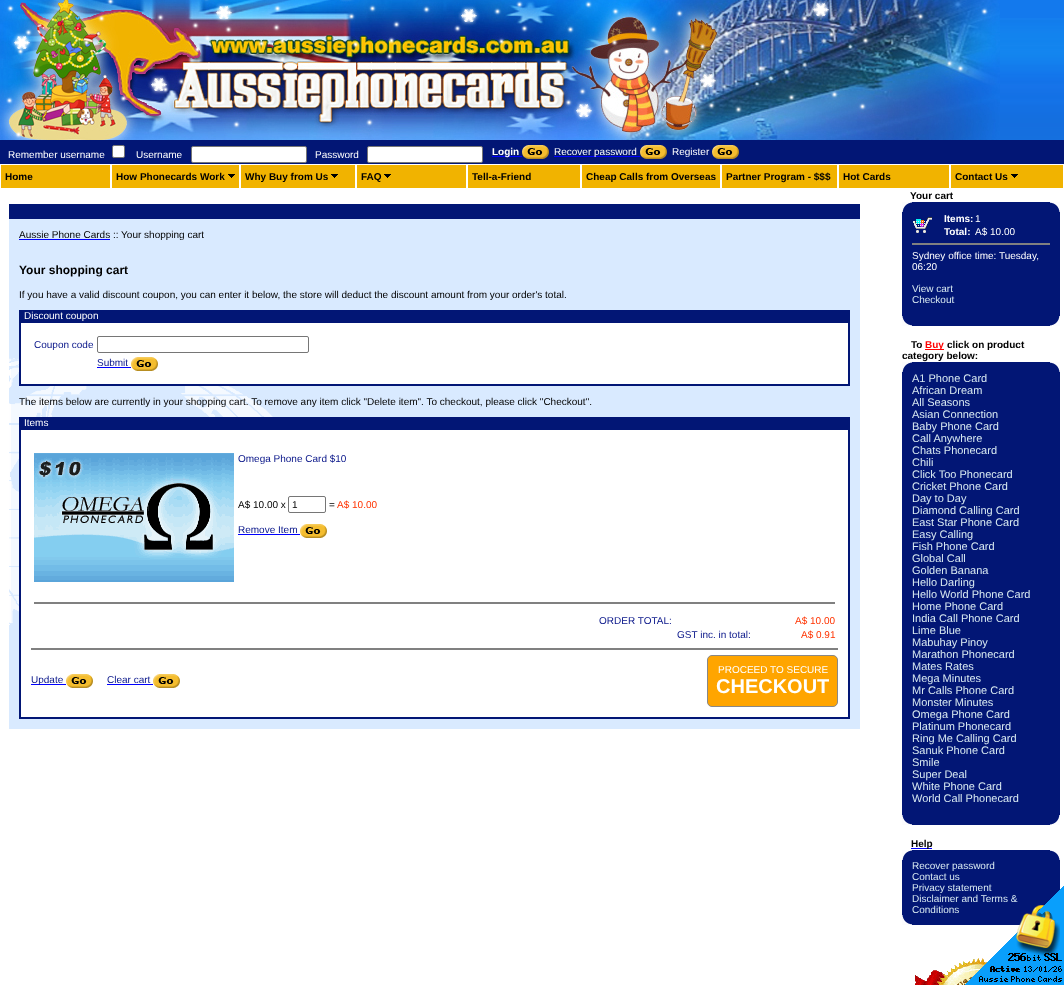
<svg xmlns="http://www.w3.org/2000/svg" width="1064" height="985" viewBox="0 0 1064 985">
  <style>
    .t1 { font: 10px Liberation Sans; fill: #fff; }
    .t2 { font: bold 10px Liberation Sans; fill: #fff; }
    .t3 { font: bold 10px Liberation Sans; fill: #000; }
    .t4 { font: 10px Liberation Sans; fill: #000; }
    .t5 { font: bold 12px Liberation Sans; fill: #000; }
    .t6 { font: 10px Liberation Sans; fill: #081589; }
    .t7 { font: 10px Liberation Sans; fill: #f30; }
    .t8 { font: bold 20px Liberation Sans; fill: #fff; }
    .t9 { font: 10px Liberation Sans; fill: #d8e9f1; }
    .t10 { font: bold 10px Liberation Sans; fill: #f00; }
    .t11 { font: 11px Liberation Sans; fill: #d8e9f1; }
  </style>
  <rect width="100%" height="100%" fill="#fff"/>
  <rect x="1000" y="0" width="64" height="18" fill="#1379ed"/>
  <image x="1000" y="18" width="64" height="122" href="images/1.png"/>
  <image x="0" y="0" width="1000" height="140" href="images/2.png"/>
  <rect x="0" y="140" width="1064" height="24" fill="#021675"/>
  <text x="8" y="158" class="t1">Remember username</text>
  <rect x="112.5" y="145.5" width="12" height="12" rx="1.5" fill="#fff" stroke="#767676"/>
  <text x="136" y="158" class="t1">Username</text>
  <rect x="191.5" y="146.5" width="115" height="16" rx="1.5" fill="#fff" stroke="#767676"/>
  <text x="315" y="158" class="t1">Password</text>
  <rect x="367.5" y="146.5" width="115" height="16" rx="1.5" fill="#fff" stroke="#767676"/>
  <rect x="492" y="156" width="30" height="1" fill="#00f"/>
  <text x="492" y="155" class="t2">Login</text>
  <image x="522" y="145" width="27" height="14" href="images/3.png"/>
  <rect x="554" y="156" width="86" height="1" fill="#00f"/>
  <text x="554" y="155" class="t1">Recover password</text>
  <image x="640" y="145" width="27" height="14" href="images/3.png"/>
  <text x="672" y="155" class="t1">Register</text>
  <image x="712" y="145" width="27" height="14" href="images/3.png"/>
  <rect x="1" y="165" width="109" height="23" fill="#f1b300"/>
  <text x="5" y="180" class="t3">Home</text>
  <rect x="112" y="165" width="127" height="23" fill="#f1b300"/>
  <text x="116" y="180" class="t3">How Phonecards Work</text>
  <image x="228" y="174" width="7" height="4" href="images/4.png"/>
  <rect x="241" y="165" width="114" height="23" fill="#f1b300"/>
  <text x="245" y="180" class="t3">Why Buy from Us</text>
  <image x="331" y="174" width="7" height="4" href="images/4.png"/>
  <rect x="357" y="165" width="109" height="23" fill="#f1b300"/>
  <text x="361" y="180" class="t3">FAQ</text>
  <image x="384" y="174" width="7" height="4" href="images/4.png"/>
  <rect x="468" y="165" width="112" height="23" fill="#f1b300"/>
  <text x="472" y="180" class="t3">Tell-a-Friend</text>
  <rect x="582" y="165" width="138" height="23" fill="#f1b300"/>
  <text x="586" y="180" class="t3">Cheap Calls from Overseas</text>
  <rect x="722" y="165" width="115" height="23" fill="#f1b300"/>
  <text x="726" y="180" class="t3">Partner Program - $$$</text>
  <rect x="839" y="165" width="110" height="23" fill="#f1b300"/>
  <text x="843" y="180" class="t3">Hot Cards</text>
  <rect x="951" y="165" width="112" height="23" fill="#f1b300"/>
  <text x="955" y="180" class="t3">Contact Us</text>
  <image x="1011" y="174" width="7" height="4" href="images/4.png"/>
  <rect x="9" y="219" width="851" height="510" fill="#d9eaff"/>
  <image x="9" y="358" width="265" height="267" href="images/5.png"/>
  <rect x="9" y="204" width="851" height="15" fill="#021675"/>
  <rect x="19" y="239" width="91" height="1" fill="#00f"/>
  <text x="19" y="238" class="t4">Aussie Phone Cards :: Your shopping cart</text>
  <text x="19" y="274" class="t5">Your shopping cart</text>
  <text x="19" y="298" class="t4">If you have a valid discount coupon, you can enter it below, the store will deduct the discount amount from your order's total.</text>
  <rect x="19" y="310" width="831" height="76" fill="#021675"/>
  <text x="24" y="319" class="t1">Discount coupon</text>
  <rect x="21" y="323" width="827" height="61" fill="#fff"/>
  <text x="34" y="348" class="t6">Coupon code</text>
  <rect x="97.5" y="336.5" width="211" height="16" rx="1.5" fill="none" stroke="#767676"/>
  <text x="97" y="366" class="t6">Submit</text>
  <rect x="97" y="367" width="34" height="1" fill="#00f"/>
  <image x="131" y="357" width="27" height="14" href="images/6.png"/>
  <text x="19" y="405" class="t4">The items below are currently in your shopping cart. To remove any item click "Delete item". To checkout, please click "Checkout".</text>
  <rect x="19" y="417" width="831" height="302" fill="#021675"/>
  <text x="24" y="426" class="t1">Items</text>
  <rect x="21" y="430" width="827" height="287" fill="#fff"/>
  <image x="34" y="453" width="200" height="129" href="images/7.png"/>
  <text x="238" y="462" class="t6">Omega Phone Card $10</text>
  <text x="238" y="508" class="t4">A$ 10.00 x</text>
  <rect x="288.5" y="496.5" width="37" height="16" rx="1.5" fill="none" stroke="#767676"/>
  <text x="292" y="508" class="t4">1</text>
  <text x="329" y="508" class="t4">=</text>
  <text x="337" y="508" class="t7">A$ 10.00</text>
  <text x="238" y="533" class="t6">Remove Item</text>
  <rect x="238" y="534" width="62" height="1" fill="#00f"/>
  <image x="300" y="524" width="27" height="14" href="images/6.png"/>
  <rect x="35" y="603" width="799" height="1" fill="#808080"/>
  <rect x="34" y="602" width="801" height="1" fill="#808080"/>
  <rect x="834" y="602" width="1" height="2" fill="#808080"/>
  <rect x="34" y="602" width="1" height="2" fill="#808080"/>
  <text x="599" y="624" class="t6">ORDER TOTAL:</text>
  <text x="795" y="624" class="t7">A$ 10.00</text>
  <text x="677" y="638" class="t6">GST inc. in total:</text>
  <text x="801" y="638" class="t7">A$ 0.91</text>
  <rect x="32" y="649" width="805" height="1" fill="#808080"/>
  <rect x="31" y="648" width="807" height="1" fill="#808080"/>
  <rect x="837" y="648" width="1" height="2" fill="#808080"/>
  <rect x="31" y="648" width="1" height="2" fill="#808080"/>
  <rect x="31" y="684" width="35" height="1" fill="#00f"/>
  <text x="31" y="683" class="t6">Update</text>
  <image x="66" y="674" width="27" height="14" href="images/6.png"/>
  <text x="107" y="683" class="t6">Clear cart</text>
  <rect x="107" y="684" width="46" height="1" fill="#00f"/>
  <image x="153" y="674" width="27" height="14" href="images/6.png"/>
  <rect x="707.5" y="655.5" width="130" height="51" rx="4.5" fill="#ffa500" stroke="#888"/>
  <text x="718" y="673" class="t1">PROCEED TO SECURE</text>
  <text x="716" y="693" class="t8">CHECKOUT</text>
  <text x="910" y="199" class="t3">Your cart</text>
  <rect x="902" y="202" width="158" height="124" fill="#021675"/>
  <image x="902" y="202" width="10" height="10" href="images/8.png"/>
  <image x="1050" y="202" width="10" height="10" href="images/9.png"/>
  <image x="913" y="217" width="19" height="16" href="images/10.png"/>
  <text x="944" y="222" class="t2">Items:</text>
  <text x="975" y="222" class="t1">1</text>
  <text x="944" y="235" class="t2">Total:</text>
  <text x="975" y="235" class="t1">A$ 10.00</text>
  <rect x="913" y="244" width="136" height="1" fill="#808080"/>
  <rect x="912" y="243" width="138" height="1" fill="#808080"/>
  <rect x="1049" y="243" width="1" height="2" fill="#808080"/>
  <rect x="912" y="243" width="1" height="2" fill="#808080"/>
  <text x="912" y="259" class="t1">Sydney office time: Tuesday,</text>
  <text x="912" y="270" class="t1">06:20</text>
  <text x="912" y="292" class="t9">View cart</text>
  <text x="912" y="303" class="t9">Checkout</text>
  <image x="902" y="316" width="10" height="10" href="images/11.png"/>
  <image x="1050" y="316" width="10" height="10" href="images/12.png"/>
  <text x="911" y="348" class="t3">To</text>
  <rect x="925" y="349" width="19" height="1" fill="#f00"/>
  <text x="925" y="348" class="t10">Buy</text>
  <text x="947" y="348" class="t3">click on product</text>
  <text x="902" y="359" class="t3">category below:</text>
  <rect x="902" y="362" width="158" height="463" fill="#021675"/>
  <image x="902" y="362" width="10" height="10" href="images/8.png"/>
  <image x="1050" y="362" width="10" height="10" href="images/9.png"/>
  <text x="912" y="382" class="t11">A1 Phone Card</text>
  <text x="912" y="394" class="t11">African Dream</text>
  <text x="912" y="406" class="t11">All Seasons</text>
  <text x="912" y="418" class="t11">Asian Connection</text>
  <text x="912" y="430" class="t11">Baby Phone Card</text>
  <text x="912" y="442" class="t11">Call Anywhere</text>
  <text x="912" y="454" class="t11">Chats Phonecard</text>
  <text x="912" y="466" class="t11">Chili</text>
  <text x="912" y="478" class="t11">Click Too Phonecard</text>
  <text x="912" y="490" class="t11">Cricket Phone Card</text>
  <text x="912" y="502" class="t11">Day to Day</text>
  <text x="912" y="514" class="t11">Diamond Calling Card</text>
  <text x="912" y="526" class="t11">East Star Phone Card</text>
  <text x="912" y="538" class="t11">Easy Calling</text>
  <text x="912" y="550" class="t11">Fish Phone Card</text>
  <text x="912" y="562" class="t11">Global Call</text>
  <text x="912" y="574" class="t11">Golden Banana</text>
  <text x="912" y="586" class="t11">Hello Darling</text>
  <text x="912" y="598" class="t11">Hello World Phone Card</text>
  <text x="912" y="610" class="t11">Home Phone Card</text>
  <text x="912" y="622" class="t11">India Call Phone Card</text>
  <text x="912" y="634" class="t11">Lime Blue</text>
  <text x="912" y="646" class="t11">Mabuhay Pinoy</text>
  <text x="912" y="658" class="t11">Marathon Phonecard</text>
  <text x="912" y="670" class="t11">Mates Rates</text>
  <text x="912" y="682" class="t11">Mega Minutes</text>
  <text x="912" y="694" class="t11">Mr Calls Phone Card</text>
  <text x="912" y="706" class="t11">Monster Minutes</text>
  <text x="912" y="718" class="t11">Omega Phone Card</text>
  <text x="912" y="730" class="t11">Platinum Phonecard</text>
  <text x="912" y="742" class="t11">Ring Me Calling Card</text>
  <text x="912" y="754" class="t11">Sanuk Phone Card</text>
  <text x="912" y="766" class="t11">Smile</text>
  <text x="912" y="778" class="t11">Super Deal</text>
  <text x="912" y="790" class="t11">White Phone Card</text>
  <text x="912" y="802" class="t11">World Call Phonecard</text>
  <image x="902" y="815" width="10" height="10" href="images/11.png"/>
  <image x="1050" y="815" width="10" height="10" href="images/12.png"/>
  <rect x="911" y="848" width="21" height="1" fill="#00f"/>
  <text x="911" y="847" class="t3">Help</text>
  <rect x="902" y="850" width="158" height="75" fill="#021675"/>
  <image x="902" y="850" width="10" height="10" href="images/8.png"/>
  <image x="1050" y="850" width="10" height="10" href="images/9.png"/>
  <text x="912" y="869" class="t9">Recover password</text>
  <text x="912" y="880" class="t9">Contact us</text>
  <text x="912" y="891" class="t9">Privacy statement</text>
  <text x="912" y="902" class="t9">Disclaimer and Terms &amp;</text>
  <text x="912" y="913" class="t9">Conditions</text>
  <image x="902" y="915" width="10" height="10" href="images/11.png"/>
  <image x="915" y="958" width="72" height="27" href="images/13.png"/>
  <image x="965" y="886" width="99" height="99" href="images/14.png"/>
</svg>
